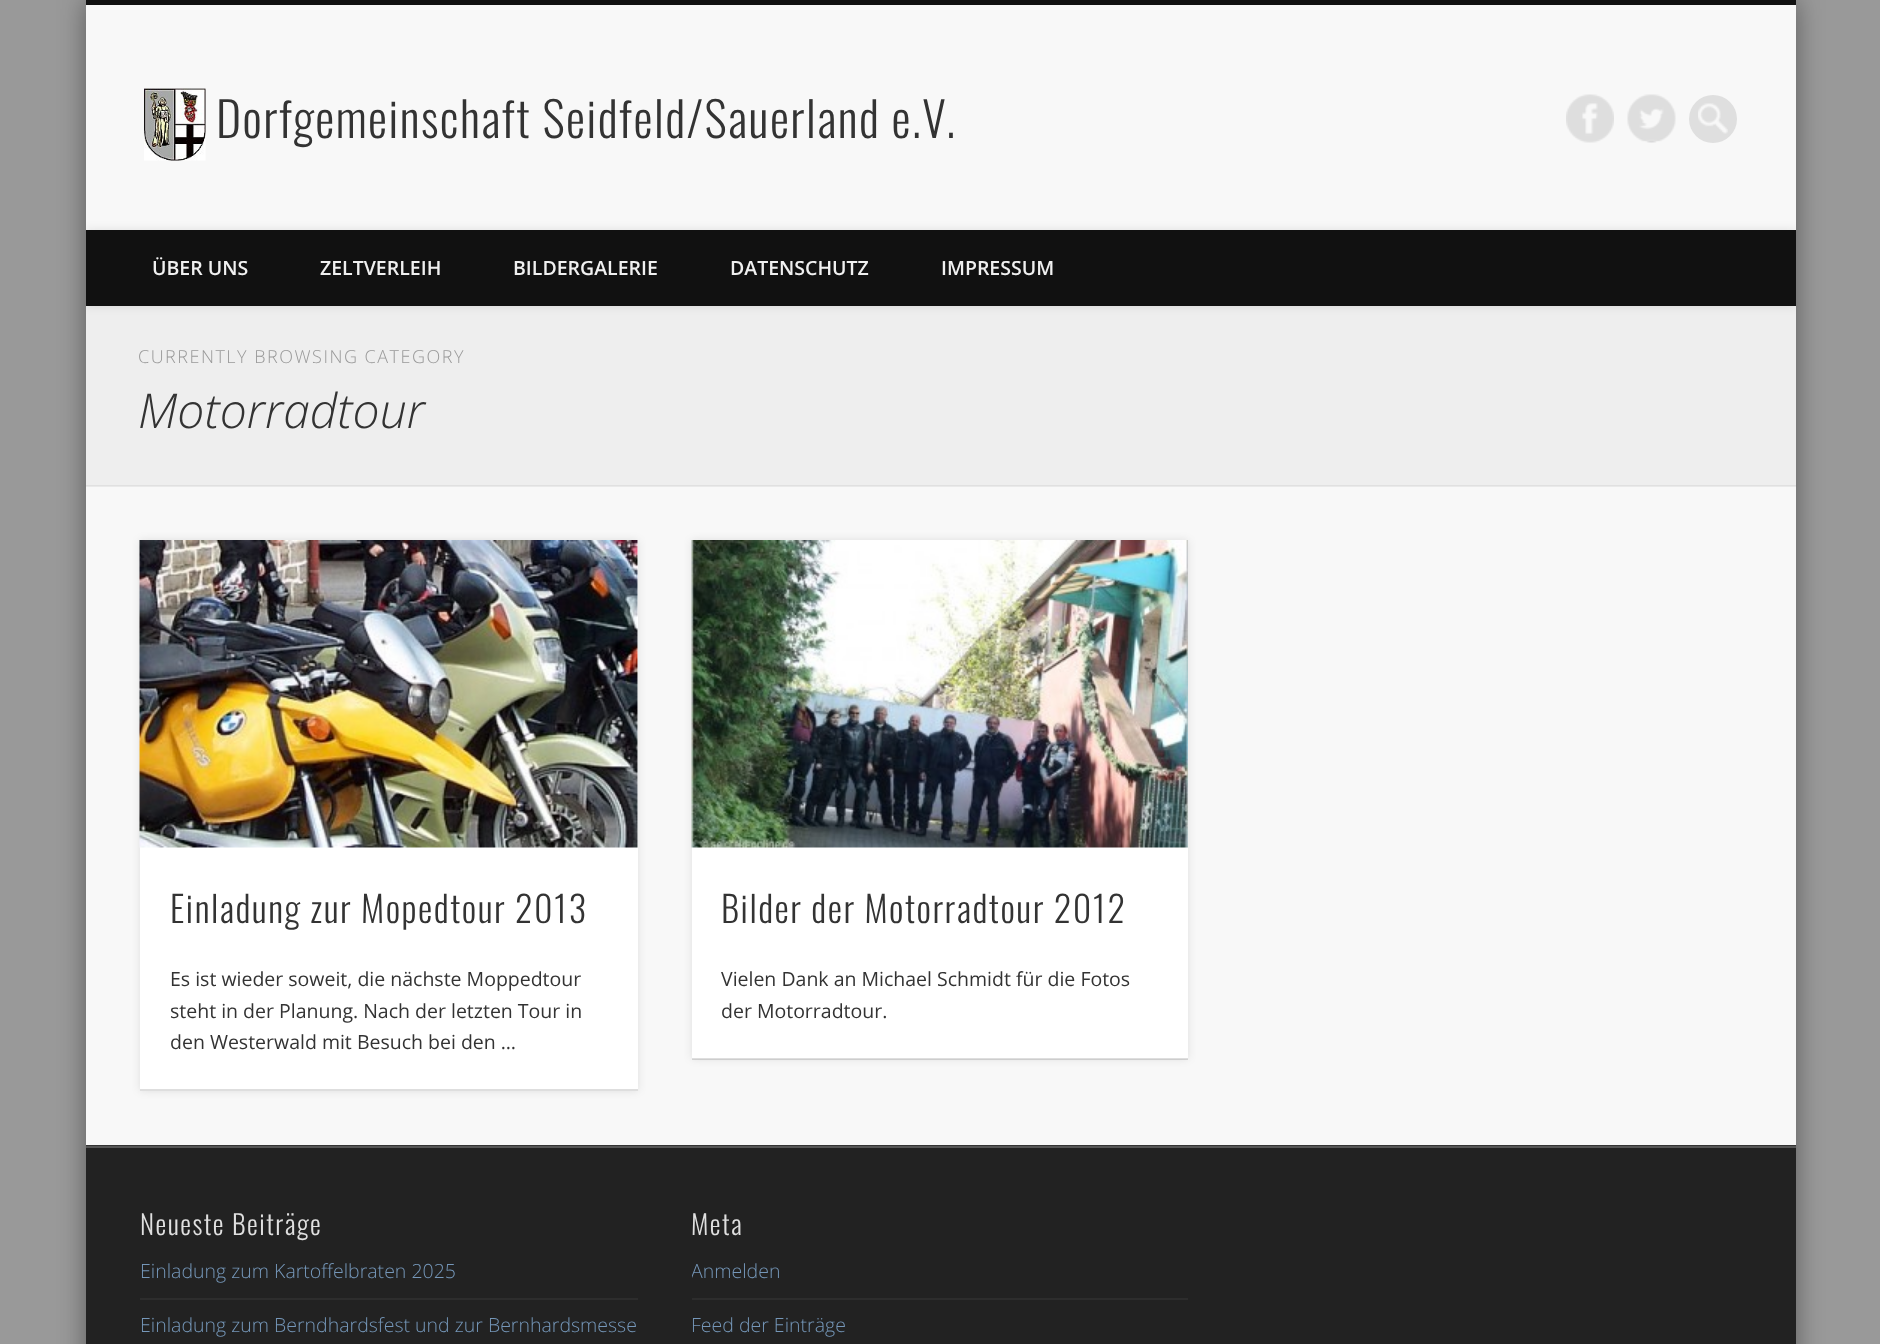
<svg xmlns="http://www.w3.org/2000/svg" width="1880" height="1344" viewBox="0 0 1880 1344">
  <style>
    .t1 { font: 300 48px Oswald; letter-spacing: 1.5px; fill: #333; }
    .t2 { font: 600 19.5px Open Sans; fill: #f0f0f0; }
    .t3 { font: 300 18px Open Sans; letter-spacing: 1.5px; fill: #999; }
    .t4 { font: italic 300 48px Open Sans; fill: #333; }
    .t5 { font: 300 36px Oswald; letter-spacing: 1.5px; fill: #333; }
    .t6 { font: 19.5px Open Sans; fill: #333; }
    .t7 { font: 300 27px Oswald; letter-spacing: 1.5px; fill: #e0e0e0; }
    .t8 { font: 300 19.5px Open Sans; fill: #7597b9; }
  </style>
  <defs>
    <clipPath id="clip1"><rect x="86" y="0" width="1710" height="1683"/></clipPath>
    <clipPath id="clip2"><rect x="692" y="1245" width="496" height="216"/></clipPath>
  </defs>
  <rect width="100%" height="100%" fill="#999"/>
  <rect x="86" y="0" width="1710" height="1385" fill="#00000066" filter="blur(13.5px)"/>
  <rect x="86" y="5" width="1710" height="1140" fill="#f8f8f8"/>
  <rect x="86" y="0" width="1710" height="5" fill="#111"/>
  <image x="144" y="88" width="62" height="73" href="images/1.png"/>
  <text x="216" y="138" class="t1">Dorfgemeinschaft Seidfeld/Sauerland e.V.</text>
  <image x="1566" y="94" width="48" height="49" href="images/2.png"/>
  <image x="1627" y="94" width="49" height="49" href="images/3.png"/>
  <circle cx="1713" cy="119" r="24" fill="#dfdfdf"/>
  <image x="1698" y="103" width="30" height="31" href="images/4.png"/>
  <rect x="86" y="306" width="1710" height="180" fill="#eee"/>
  <g clip-path="url(#clip1)">
    <rect x="86" y="230" width="1710" height="76" fill="#0000001a" filter="blur(5px)"/>
  </g>
  <rect x="86" y="230" width="1710" height="76" fill="#111"/>
  <text x="152" y="275" class="t2">ÜBER UNS</text>
  <text x="320" y="275" class="t2">ZELTVERLEIH</text>
  <text x="513" y="275" class="t2">BILDERGALERIE</text>
  <text x="730" y="275" class="t2">DATENSCHUTZ</text>
  <text x="941" y="275" class="t2">IMPRESSUM</text>
  <rect x="86" y="485" width="1710" height="2" fill="#0000000f"/>
  <text x="138" y="363" class="t3">CURRENTLY BROWSING CATEGORY</text>
  <text x="138" y="428" class="t4">Motorradtour</text>
  <rect x="140" y="540" width="498" height="551" fill="#0000001a" filter="blur(4px)"/>
  <rect x="140" y="540" width="498" height="549" fill="#fff"/>
  <rect x="140" y="1089" width="498" height="2" fill="#dedede"/>
  <image x="139" y="540" width="499" height="308" href="images/5.png"/>
  <text x="170" y="923" class="t5">Einladung zur Mopedtour 2013</text>
  <text x="170" y="986" class="t6">Es ist wieder soweit, die nächste Moppedtour</text>
  <text x="170" y="1018" class="t6">steht in der Planung. Nach der letzten Tour in</text>
  <text x="170" y="1049" class="t6">den Westerwald mit Besuch bei den …</text>
  <rect x="692" y="540" width="496" height="519" fill="#0000001a" filter="blur(4px)"/>
  <rect x="692" y="847" width="496" height="212" fill="#fff"/>
  <rect x="692" y="1058" width="496" height="2" fill="#00000021"/>
  <image x="691" y="540" width="497" height="308" href="images/6.png"/>
  <text x="721" y="923" class="t5">Bilder der Motorradtour 2012</text>
  <text x="721" y="986" class="t6">Vielen Dank an Michael Schmidt für die Fotos</text>
  <text x="721" y="1018" class="t6">der Motorradtour.</text>
  <rect x="86" y="1145" width="1710" height="1" fill="#343434"/>
  <rect x="86" y="1148" width="1710" height="196" fill="#222"/>
  <rect x="86" y="1146" width="1710" height="2" fill="#565656"/>
  <text x="140" y="1235" class="t7">Neueste Beiträge</text>
  <rect x="140" y="1298" width="498" height="2" fill="#2d2d2d"/>
  <text x="140" y="1278" class="t8">Einladung zum Kartoffelbraten 2025</text>
  <text x="140" y="1332" class="t8">Einladung zum Berndhardsfest und zur Bernhardsmesse</text>
  <text x="691" y="1235" class="t7">Meta</text>
  <rect x="692" y="1298" width="496" height="2" fill="#2d2d2d"/>
  <g clip-path="url(#clip2)">
    <text x="691" y="1278" class="t8">Anmelden</text>
  </g>
  <text x="691" y="1332" class="t8">Feed der Einträge</text>
</svg>
